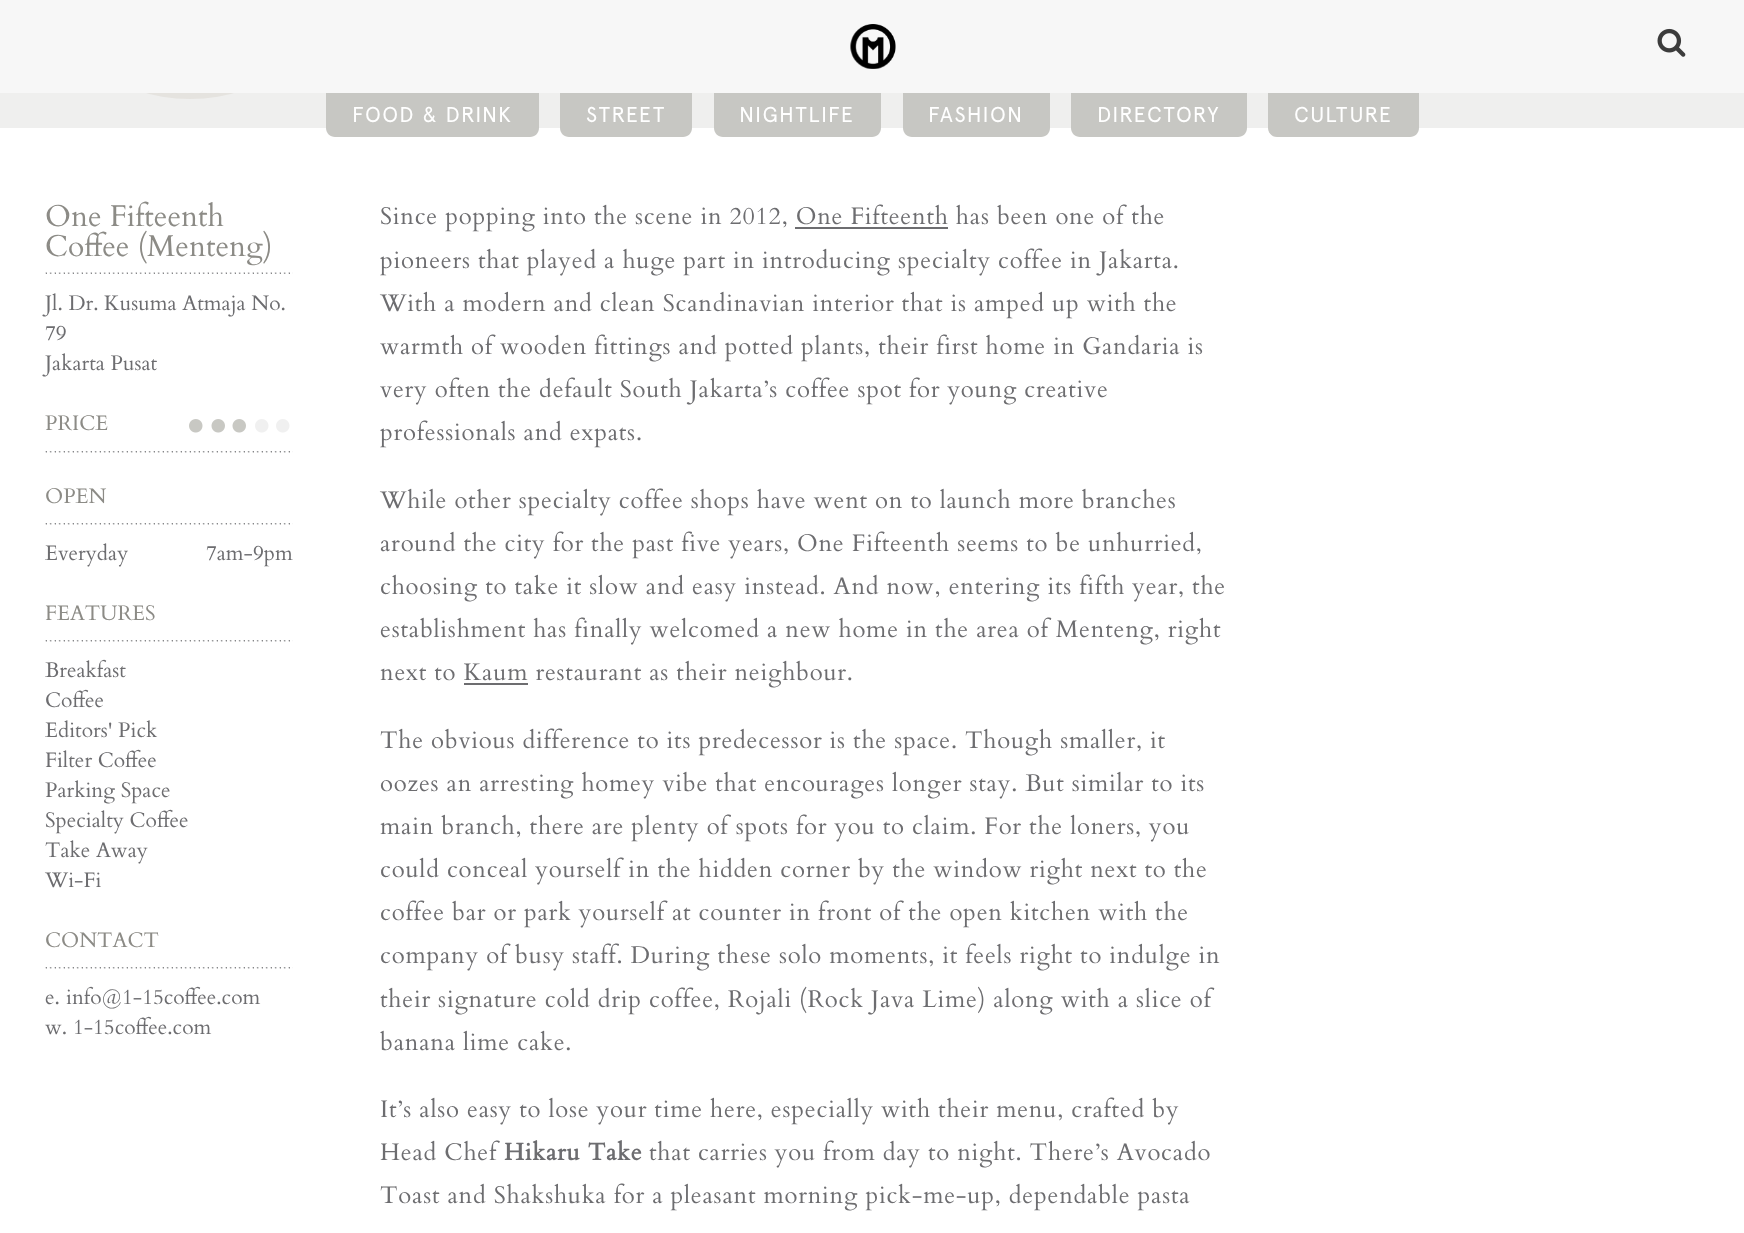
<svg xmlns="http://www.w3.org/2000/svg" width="1744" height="1233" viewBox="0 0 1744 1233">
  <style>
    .t1 { font: 21.5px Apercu; letter-spacing: 1.5px; fill: #fff; }
    .t2 { font: 30px Cardo; fill: #8c8b86; }
    .t3 { font: 21px Cardo; fill: #6d6d70; }
    .t4 { font: 21px Cardo; fill: #8c8b86; }
    .t5 { font: 24px Cardo; letter-spacing: 0.75px; fill: #6d6d70; }
    .t6 { font: bold 24px Cardo; letter-spacing: 0.75px; fill: #6d6d70; }
  </style>
  <rect width="100%" height="100%" fill="#fff"/>
  <rect x="0" y="93" width="1744" height="35" fill="#efefee"/>
  <rect x="47" y="-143" width="286" height="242" rx="143" fill="#e5e3df"/>
  <rect x="0" y="0" width="1744" height="93" fill="#f7f7f7"/>
  <image x="850" y="24" width="46" height="45" href="images/1.png"/>
  <image x="1657" y="28" width="29" height="29" href="images/2.png"/>
  <path d="M326 93H539V128C539 133 535 137 530 137H335C330 137 326 133 326 128Z" fill="#c7c7c3"/>
  <text x="352" y="122" class="t1">FOOD &amp; DRINK</text>
  <path d="M560 93H692V128C692 133 688 137 683 137H569C564 137 560 133 560 128Z" fill="#c7c7c3"/>
  <text x="586" y="122" class="t1">STREET</text>
  <path d="M714 93H881V128C881 133 877 137 872 137H723C718 137 714 133 714 128Z" fill="#c7c7c3"/>
  <text x="739" y="122" class="t1">NIGHTLIFE</text>
  <path d="M903 93H1050V128C1050 133 1046 137 1041 137H912C907 137 903 133 903 128Z" fill="#c7c7c3"/>
  <text x="928" y="122" class="t1">FASHION</text>
  <path d="M1071 93H1247V128C1247 133 1243 137 1238 137H1080C1075 137 1071 133 1071 128Z" fill="#c7c7c3"/>
  <text x="1097" y="122" class="t1">DIRECTORY</text>
  <path d="M1268 93H1419V128C1419 133 1415 137 1410 137H1277C1272 137 1268 133 1268 128Z" fill="#c7c7c3"/>
  <text x="1294" y="122" class="t1">CULTURE</text>
  <image x="45" y="272" width="248" height="2" href="images/3.png"/>
  <text x="45" y="226" class="t2">One Fifteenth</text>
  <text x="45" y="256" class="t2">Coffee (Menteng)</text>
  <text x="45" y="310" class="t3">Jl. Dr. Kusuma Atmaja No.</text>
  <text x="45" y="340" class="t3">79</text>
  <text x="45" y="370" class="t3">Jakarta Pusat</text>
  <image x="45" y="451" width="248" height="2" href="images/4.png"/>
  <text x="45" y="430" class="t4">PRICE</text>
  <image x="189" y="419" width="14" height="14" href="images/5.png"/>
  <image x="211" y="419" width="14" height="14" href="images/6.png"/>
  <image x="232" y="419" width="14" height="14" href="images/6.png"/>
  <image x="255" y="419" width="14" height="14" href="images/7.png"/>
  <image x="276" y="419" width="14" height="14" href="images/7.png"/>
  <image x="45" y="523" width="248" height="2" href="images/8.png"/>
  <text x="45" y="503" class="t4">OPEN</text>
  <text x="45" y="560" class="t3">Everyday</text>
  <text x="206" y="560" class="t3">7am-9pm</text>
  <image x="45" y="640" width="248" height="2" href="images/8.png"/>
  <text x="45" y="620" class="t4">FEATURES</text>
  <text x="45" y="677" class="t3">Breakfast</text>
  <text x="45" y="707" class="t3">Coffee</text>
  <text x="45" y="737" class="t3">Editors' Pick</text>
  <text x="45" y="767" class="t3">Filter Coffee</text>
  <text x="45" y="797" class="t3">Parking Space</text>
  <text x="45" y="827" class="t3">Specialty Coffee</text>
  <text x="45" y="857" class="t3">Take Away</text>
  <text x="45" y="887" class="t3">Wi-Fi</text>
  <image x="45" y="967" width="248" height="2" href="images/8.png"/>
  <text x="45" y="947" class="t4">CONTACT</text>
  <text x="45" y="1004" class="t3">e.</text>
  <text x="66" y="1004" class="t3">info@1-15coffee.com</text>
  <text x="45" y="1034" class="t3">w.</text>
  <text x="73" y="1034" class="t3">1-15coffee.com</text>
  <text x="380" y="224" class="t5">Since popping into the scene in 2012, One Fifteenth has been one of the</text>
  <rect x="795" y="227" width="153" height="2" fill="#6d6d70"/>
  <text x="380" y="268" class="t5">pioneers that played a huge part in introducing specialty coffee in Jakarta.</text>
  <text x="380" y="311" class="t5">With a modern and clean Scandinavian interior that is amped up with the</text>
  <text x="380" y="354" class="t5">warmth of wooden fittings and potted plants, their first home in Gandaria is</text>
  <text x="380" y="397" class="t5">very often the default South Jakarta’s coffee spot for young creative</text>
  <text x="380" y="440" class="t5">professionals and expats.</text>
  <text x="380" y="508" class="t5">While other specialty coffee shops have went on to launch more branches</text>
  <text x="380" y="551" class="t5">around the city for the past five years, One Fifteenth seems to be unhurried,</text>
  <text x="380" y="594" class="t5">choosing to take it slow and easy instead. And now, entering its fifth year, the</text>
  <text x="380" y="637" class="t5">establishment has finally welcomed a new home in the area of Menteng, right</text>
  <text x="380" y="680" class="t5">next to Kaum restaurant as their neighbour.</text>
  <rect x="464" y="683" width="64" height="2" fill="#6d6d70"/>
  <text x="380" y="748" class="t5">The obvious difference to its predecessor is the space. Though smaller, it</text>
  <text x="380" y="791" class="t5">oozes an arresting homey vibe that encourages longer stay. But similar to its</text>
  <text x="380" y="834" class="t5">main branch, there are plenty of spots for you to claim. For the loners, you</text>
  <text x="380" y="877" class="t5">could conceal yourself in the hidden corner by the window right next to the</text>
  <text x="380" y="920" class="t5">coffee bar or park yourself at counter in front of the open kitchen with the</text>
  <text x="380" y="963" class="t5">company of busy staff. During these solo moments, it feels right to indulge in</text>
  <text x="380" y="1007" class="t5">their signature cold drip coffee, Rojali (Rock Java Lime) along with a slice of</text>
  <text x="380" y="1050" class="t5">banana lime cake.</text>
  <text x="380" y="1117" class="t5">It’s also easy to lose your time here, especially with their menu, crafted by</text>
  <text x="380" y="1160" class="t5">Head Chef</text>
  <text x="504" y="1160" class="t6">Hikaru Take</text>
  <text x="649" y="1160" class="t5">that carries you from day to night. There’s Avocado</text>
  <text x="380" y="1203" class="t5">Toast and Shakshuka for a pleasant morning pick-me-up, dependable pasta</text>
</svg>
